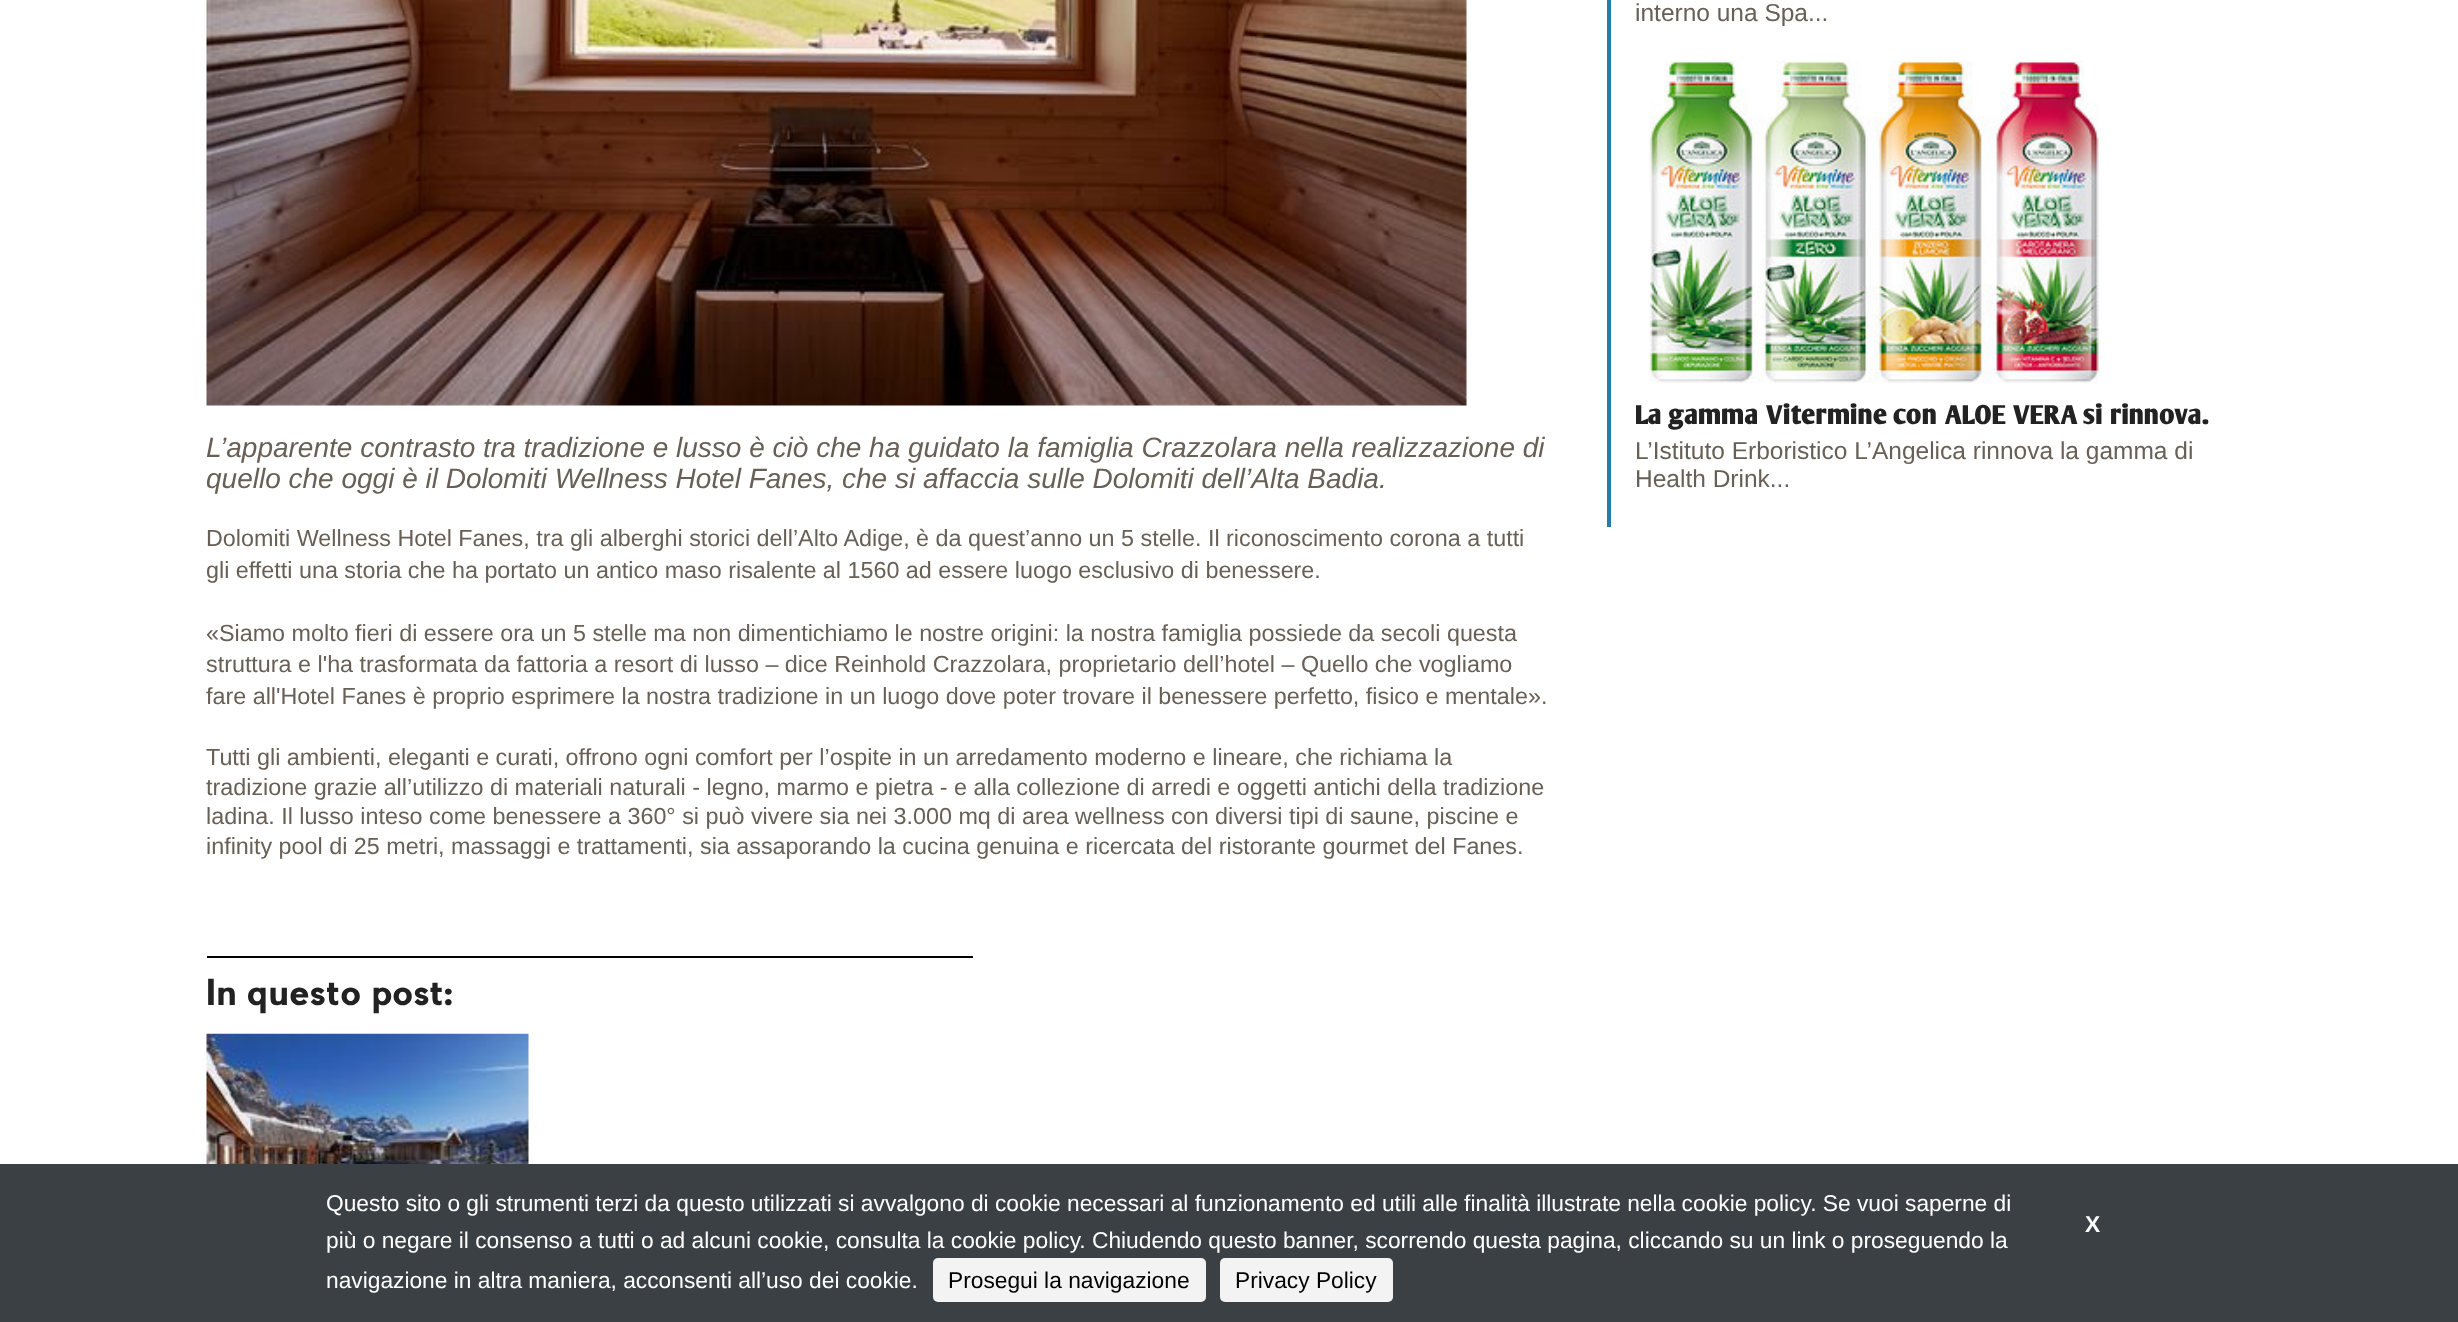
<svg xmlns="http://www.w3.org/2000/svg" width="2458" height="1322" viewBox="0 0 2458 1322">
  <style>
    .t1 { font: 24.5px Liberation Sans; fill: #686057; }
    .t2 { font: bold 26.25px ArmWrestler; fill: #222; }
    .t3 { font: italic 28px Liberation Sans; fill: #686057; }
    .t4 { font: 23.33px Liberation Sans; fill: #686057; }
    .t5 { font: bold 35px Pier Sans; fill: #222; }
    .t6 { font: 22.75px Liberation Sans; fill: #fff; }
    .t7 { font: bold 22.75px Liberation Sans; fill: #fff; }
    .t8 { font: 22.75px Liberation Sans; fill: #000; }
  </style>
  <rect width="100%" height="100%" fill="#fff"/>
  <rect x="1607" y="0" width="4" height="527" fill="#247da3"/>
  <text x="1635" y="21" class="t1">interno una Spa...</text>
  <image x="1649" y="60" width="450" height="323" href="images/1.png"/>
  <text x="1635" y="424" class="t2">La gamma Vitermine con ALOE VERA si rinnova.</text>
  <text x="1635" y="459" class="t1">L’Istituto Erboristico L’Angelica rinnova la gamma di</text>
  <text x="1635" y="487" class="t1">Health Drink...</text>
  <image x="206" y="0" width="1261" height="406" href="images/2.png"/>
  <text x="206" y="457" class="t3">L’apparente contrasto tra tradizione e lusso è ciò che ha guidato la famiglia Crazzolara nella realizzazione di</text>
  <text x="206" y="488" class="t3">quello che oggi è il Dolomiti Wellness Hotel Fanes, che si affaccia sulle Dolomiti dell’Alta Badia.</text>
  <text x="206" y="546" class="t4">Dolomiti Wellness Hotel Fanes, tra gli alberghi storici dell’Alto Adige, è da quest’anno un 5 stelle. Il riconoscimento corona a tutti</text>
  <text x="206" y="578" class="t4">gli effetti una storia che ha portato un antico maso risalente al 1560 ad essere luogo esclusivo di benessere.</text>
  <text x="206" y="641" class="t4">«Siamo molto fieri di essere ora un 5 stelle ma non dimentichiamo le nostre origini: la nostra famiglia possiede da secoli questa</text>
  <text x="206" y="672" class="t4">struttura e l'ha trasformata da fattoria a resort di lusso – dice Reinhold Crazzolara, proprietario dell’hotel – Quello che vogliamo</text>
  <text x="206" y="704" class="t4">fare all'Hotel Fanes è proprio esprimere la nostra tradizione in un luogo dove poter trovare il benessere perfetto, fisico e mentale».</text>
  <text x="206" y="765" class="t4">Tutti gli ambienti, eleganti e curati, offrono ogni comfort per l’ospite in un arredamento moderno e lineare, che richiama la</text>
  <text x="206" y="795" class="t4">tradizione grazie all’utilizzo di materiali naturali - legno, marmo e pietra - e alla collezione di arredi e oggetti antichi della tradizione</text>
  <text x="206" y="824" class="t4">ladina. Il lusso inteso come benessere a 360° si può vivere sia nei 3.000 mq di area wellness con diversi tipi di saune, piscine e</text>
  <text x="206" y="854" class="t4">infinity pool di 25 metri, massaggi e trattamenti, sia assaporando la cucina genuina e ricercata del ristorante gourmet del Fanes.</text>
  <rect x="207" y="956" width="766" height="2" fill="#000"/>
  <text x="206" y="1005" class="t5">In questo post:</text>
  <image x="206" y="1033" width="323" height="131" href="images/3.png"/>
  <rect x="0" y="1164" width="2458" height="158" fill="#3b4045"/>
  <text x="326" y="1211" class="t6">Questo sito o gli strumenti terzi da questo utilizzati si avvalgono di cookie necessari al funzionamento ed utili alle finalità illustrate nella cookie policy. Se vuoi saperne di</text>
  <text x="2085" y="1232" class="t7">X</text>
  <text x="326" y="1248" class="t6">più o negare il consenso a tutti o ad alcuni cookie, consulta la cookie policy. Chiudendo questo banner, scorrendo questa pagina, cliccando su un link o proseguendo la</text>
  <text x="326" y="1288" class="t6">navigazione in altra maniera, acconsenti all’uso dei cookie.</text>
  <rect x="933" y="1258" width="273" height="44" rx="5" fill="#f3f3f3"/>
  <text x="948" y="1288" class="t8">Prosegui la navigazione</text>
  <rect x="1220" y="1258" width="173" height="44" rx="5" fill="#f3f3f3"/>
  <text x="1235" y="1288" class="t8">Privacy Policy</text>
</svg>
